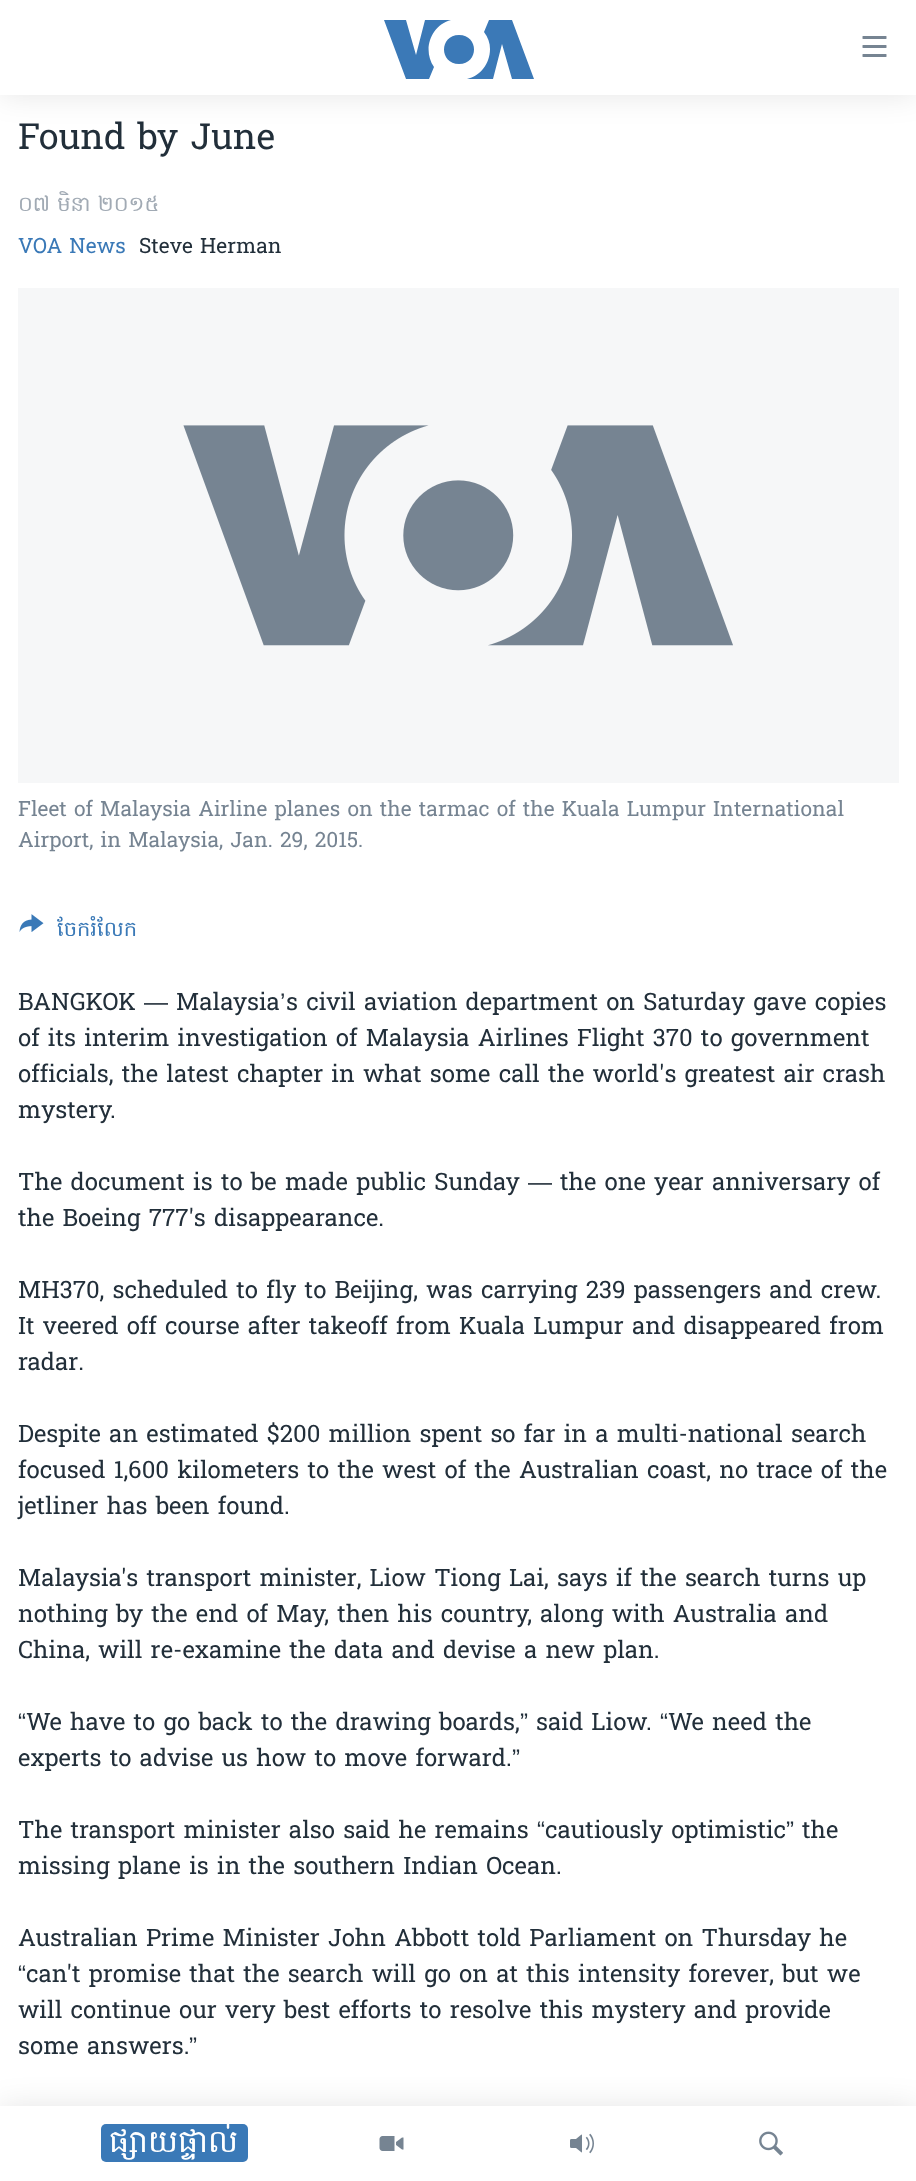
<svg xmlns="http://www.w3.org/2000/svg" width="916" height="2181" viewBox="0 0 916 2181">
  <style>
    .t1 { font: 36px Hanuman; fill: #222f3a; }
    .t2 { font: 21px Hanuman; fill: #a1aab4; }
    .t3 { font: 21px Hanuman; fill: #3a79b7; }
    .t4 { font: 21px Hanuman; fill: #222f3a; }
    .t5 { font: 21px Hanuman; fill: #768492; }
    .t6 { font: 24px Hanuman; fill: #222f3a; }
    .t7 { font: 24px Liberation Sans; fill: #222f3a; }
    .t8 { font: 31.5px Hanuman; fill: #fff; }
  </style>
  <rect width="100%" height="100%" fill="#fff"/>
  <text x="18" y="149" class="t1">Found by June</text>
  <text x="18" y="211" class="t2">០៧ មិនា ២០១៥</text>
  <text x="18" y="253" class="t3">VOA News</text>
  <text x="139" y="253" class="t4">Steve Herman</text>
  <rect x="18" y="288" width="881" height="495" fill="#f6f7f8"/>
  <image x="183" y="425" width="550" height="221" href="images/1.png"/>
  <text x="18" y="816" class="t5">Fleet of Malaysia Airline planes on the tarmac of the Kuala Lumpur International</text>
  <text x="18" y="847" class="t5">Airport, in Malaysia, Jan. 29, 2015.</text>
  <image x="19" y="914" width="25" height="18" href="images/2.png"/>
  <text x="57" y="936" class="t3">ចែករំលែក</text>
  <text x="176" y="1010" class="t6">Malaysia</text>
  <text x="280" y="1010" class="t7">’</text>
  <text x="286" y="1010" class="t6">s civil aviation department on Saturday gave copies</text>
  <text x="18" y="1046" class="t6">of its interim investigation of Malaysia Airlines Flight 370 to government</text>
  <text x="18" y="1082" class="t6">officials, the latest chapter in what some call the world's greatest air crash</text>
  <text x="18" y="1118" class="t6">mystery.</text>
  <text x="18" y="1010" class="t6">BANGKOK</text>
  <text x="144" y="1010" class="t7">—</text>
  <text x="18" y="1190" class="t6">The document is to be made public Sunday</text>
  <text x="528" y="1190" class="t7">—</text>
  <text x="560" y="1190" class="t6">the one year anniversary of</text>
  <text x="18" y="1226" class="t6">the Boeing 777's disappearance.</text>
  <text x="18" y="1298" class="t6">MH370, scheduled to fly to Beijing, was carrying 239 passengers and crew.</text>
  <text x="18" y="1334" class="t6">It veered off course after takeoff from Kuala Lumpur and disappeared from</text>
  <text x="18" y="1370" class="t6">radar.</text>
  <text x="18" y="1442" class="t6">Despite an estimated $200 million spent so far in a multi-national search</text>
  <text x="18" y="1478" class="t6">focused 1,600 kilometers to the west of the Australian coast, no trace of the</text>
  <text x="18" y="1514" class="t6">jetliner has been found.</text>
  <text x="18" y="1586" class="t6">Malaysia's transport minister, Liow Tiong Lai, says if the search turns up</text>
  <text x="18" y="1622" class="t6">nothing by the end of May, then his country, along with Australia and</text>
  <text x="18" y="1658" class="t6">China, will re-examine the data and devise a new plan.</text>
  <text x="18" y="1730" class="t7">“</text>
  <text x="26" y="1730" class="t6">We have to go back to the drawing boards,</text>
  <text x="520" y="1730" class="t7">”</text>
  <text x="536" y="1730" class="t6">said Liow.</text>
  <text x="660" y="1730" class="t7">“</text>
  <text x="668" y="1730" class="t6">We need the</text>
  <text x="18" y="1766" class="t6">experts to advise us how to move forward.</text>
  <text x="512" y="1766" class="t7">”</text>
  <text x="18" y="1838" class="t6">The transport minister also said he remains</text>
  <text x="537" y="1838" class="t7">“</text>
  <text x="545" y="1838" class="t6">cautiously optimistic</text>
  <text x="786" y="1838" class="t7">”</text>
  <text x="802" y="1838" class="t6">the</text>
  <text x="18" y="1874" class="t6">missing plane is in the southern Indian Ocean.</text>
  <text x="18" y="1946" class="t6">Australian Prime Minister John Abbott told Parliament on Thursday he</text>
  <text x="18" y="1982" class="t7">“</text>
  <text x="26" y="1982" class="t6">can't promise that the search will go on at this intensity forever, but we</text>
  <text x="18" y="2018" class="t6">will continue our very best efforts to resolve this mystery and provide</text>
  <text x="189" y="2054" class="t7">”</text>
  <text x="18" y="2054" class="t6">some answers.</text>
  <rect x="0" y="0" width="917" height="95" fill="#0000001a" filter="blur(15px)"/>
  <rect x="0" y="0" width="916" height="95" fill="#fff"/>
  <path d="M434 67L429 79H406L384 20H406L416 55L425 20H451C431 25 422 50 434 67ZM459 35C439 35 439 64 459 64C479 64 479 35 459 35ZM490 49C490 64 480 76 467 79H493L502 44L512 79H534L512 20H489L484 32C488 37 490 43 490 49Z" fill="#3b79b7"/>
  <image x="862" y="36" width="25" height="21" href="images/3.png"/>
  <rect x="0" y="2106" width="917" height="75" fill="#0000001a" filter="blur(15px)"/>
  <rect x="0" y="2106" width="916" height="75" fill="#fff"/>
  <rect x="101" y="2124" width="147" height="38" rx="5" fill="#3a79b7"/>
  <text x="109" y="2152" class="t8">ផ្សាយផ្ទាល់</text>
  <image x="379" y="2136" width="25" height="15" href="images/4.png"/>
  <image x="570" y="2133" width="24" height="21" href="images/5.png"/>
  <image x="759" y="2131" width="24" height="25" href="images/6.png"/>
</svg>
